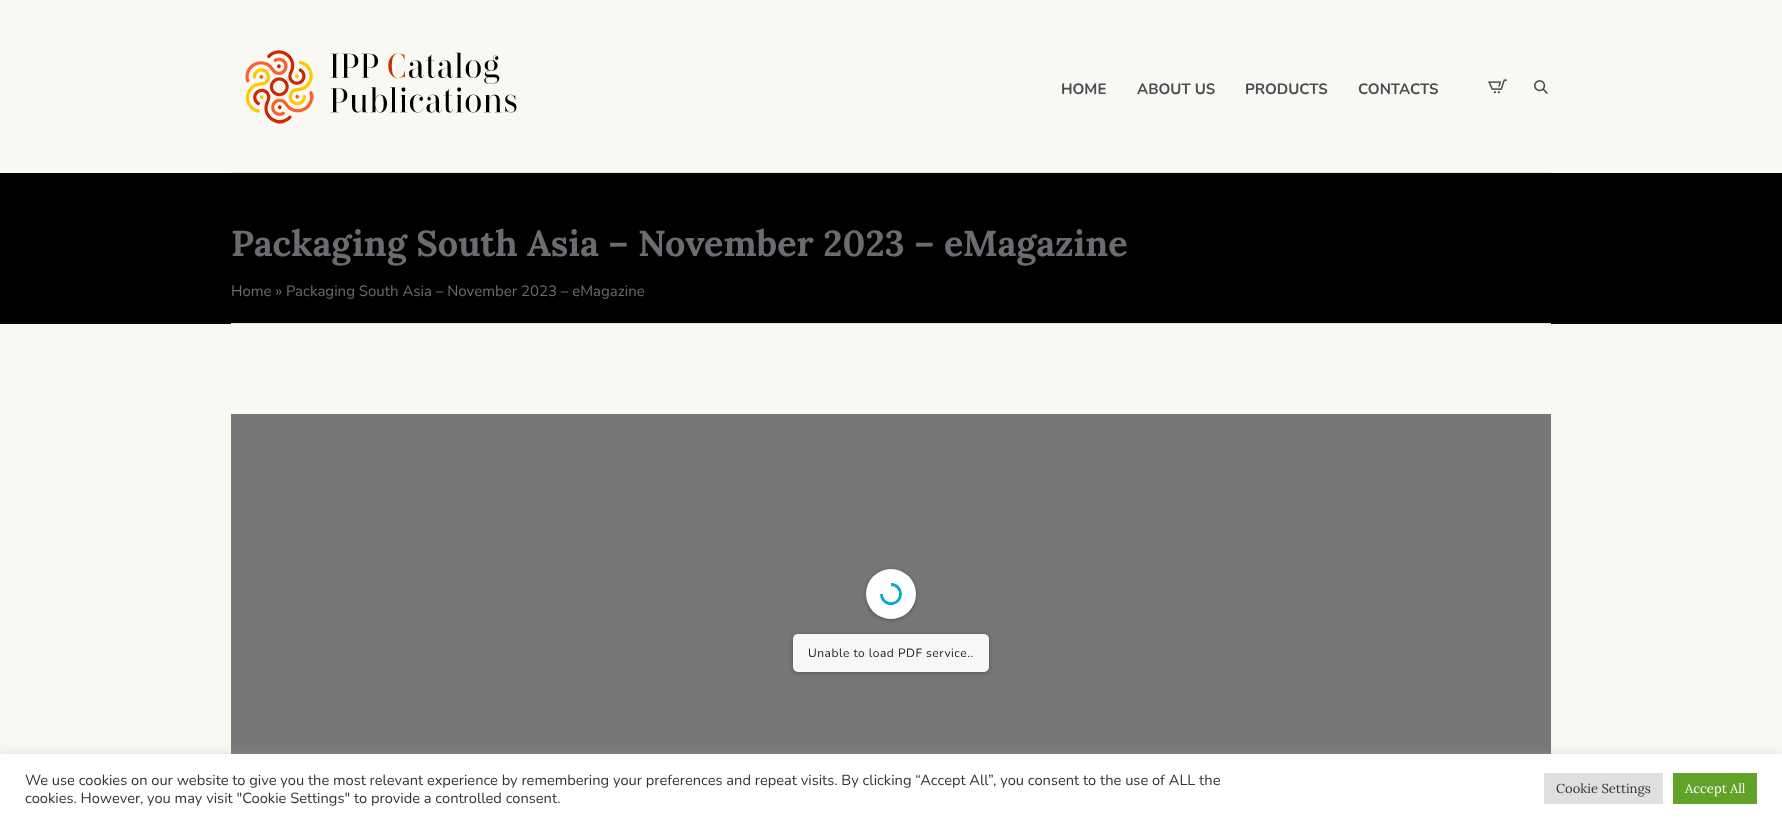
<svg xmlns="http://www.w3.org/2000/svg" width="1782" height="823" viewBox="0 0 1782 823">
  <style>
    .t1 { font: bold 15px Nunito; fill: #484c53; }
    .t2 { font: bold 36px Lora; fill: #6b6c70; }
    .t3 { font: 15px Nunito; fill: #6b6c70; }
    .t4 { font: 12px Nunito; letter-spacing: 0.5px; fill: #222; }
    .t5 { font: 14.67px Nunito; fill: #333; }
    .t6 { font: 13px Lora; fill: #333; }
    .t7 { font: 13px Lora; fill: #fff; }
  </style>
  <rect width="100%" height="100%" fill="#faf8f2"/>
  <image x="245" y="50" width="272" height="74" href="images/1.png"/>
  <text x="1061" y="94" class="t1">HOME</text>
  <text x="1137" y="94" class="t1">ABOUT US</text>
  <text x="1245" y="94" class="t1">PRODUCTS</text>
  <text x="1358" y="94" class="t1">CONTACTS</text>
  <image x="1488" y="79" width="19" height="15" href="images/2.png"/>
  <image x="1534" y="80" width="14" height="14" href="images/3.png"/>
  <rect x="231" y="172" width="1320" height="1" fill="#dfdfdf"/>
  <rect x="0" y="173" width="1782" height="151" fill="#000"/>
  <rect x="231" y="323" width="1320" height="1" fill="#dfdfdf"/>
  <text x="231" y="256" class="t2">Packaging South Asia – November 2023 – eMagazine</text>
  <text x="231" y="296" class="t3">Home » Packaging South Asia – November 2023 – eMagazine</text>
  <rect x="231" y="414" width="1320" height="340" fill="#777"/>
  <rect x="866" y="570" width="50" height="50" rx="25" fill="#0000004d" filter="blur(2px)"/>
  <circle cx="891" cy="594" r="25" fill="#fff"/>
  <path d="M891 584.5C902.5 584.5 904 601 893 603.5C890.5 604 888 603.5 885.5 602C883 600 881.5 597 881.5 594" fill="none" stroke="#07abcc" stroke-width="2.9"/>
  <rect x="793" y="635" width="196" height="38" rx="5" fill="#0000004d" filter="blur(2px)"/>
  <rect x="793" y="634" width="196" height="38" rx="5" fill="#f7f7f7"/>
  <text x="808" y="657" class="t4">Unable to load PDF service..</text>
  <rect x="0" y="753" width="1782" height="69" fill="#acabab4d" filter="blur(5px)"/>
  <rect x="0" y="754" width="1782" height="69" fill="#fff"/>
  <text x="25" y="785" class="t5">We use cookies on our website to give you the most relevant experience by remembering your preferences and repeat visits. By clicking “Accept All”, you consent to the use of ALL the</text>
  <text x="25" y="803" class="t5">cookies. However, you may visit "Cookie Settings" to provide a controlled consent.</text>
  <rect x="1544" y="773" width="119" height="31" fill="#dedfe0"/>
  <text x="1556" y="793" class="t6">Cookie Settings</text>
  <rect x="1673" y="773" width="84" height="31" fill="#61a229"/>
  <text x="1685" y="793" class="t7">Accept All</text>
</svg>
